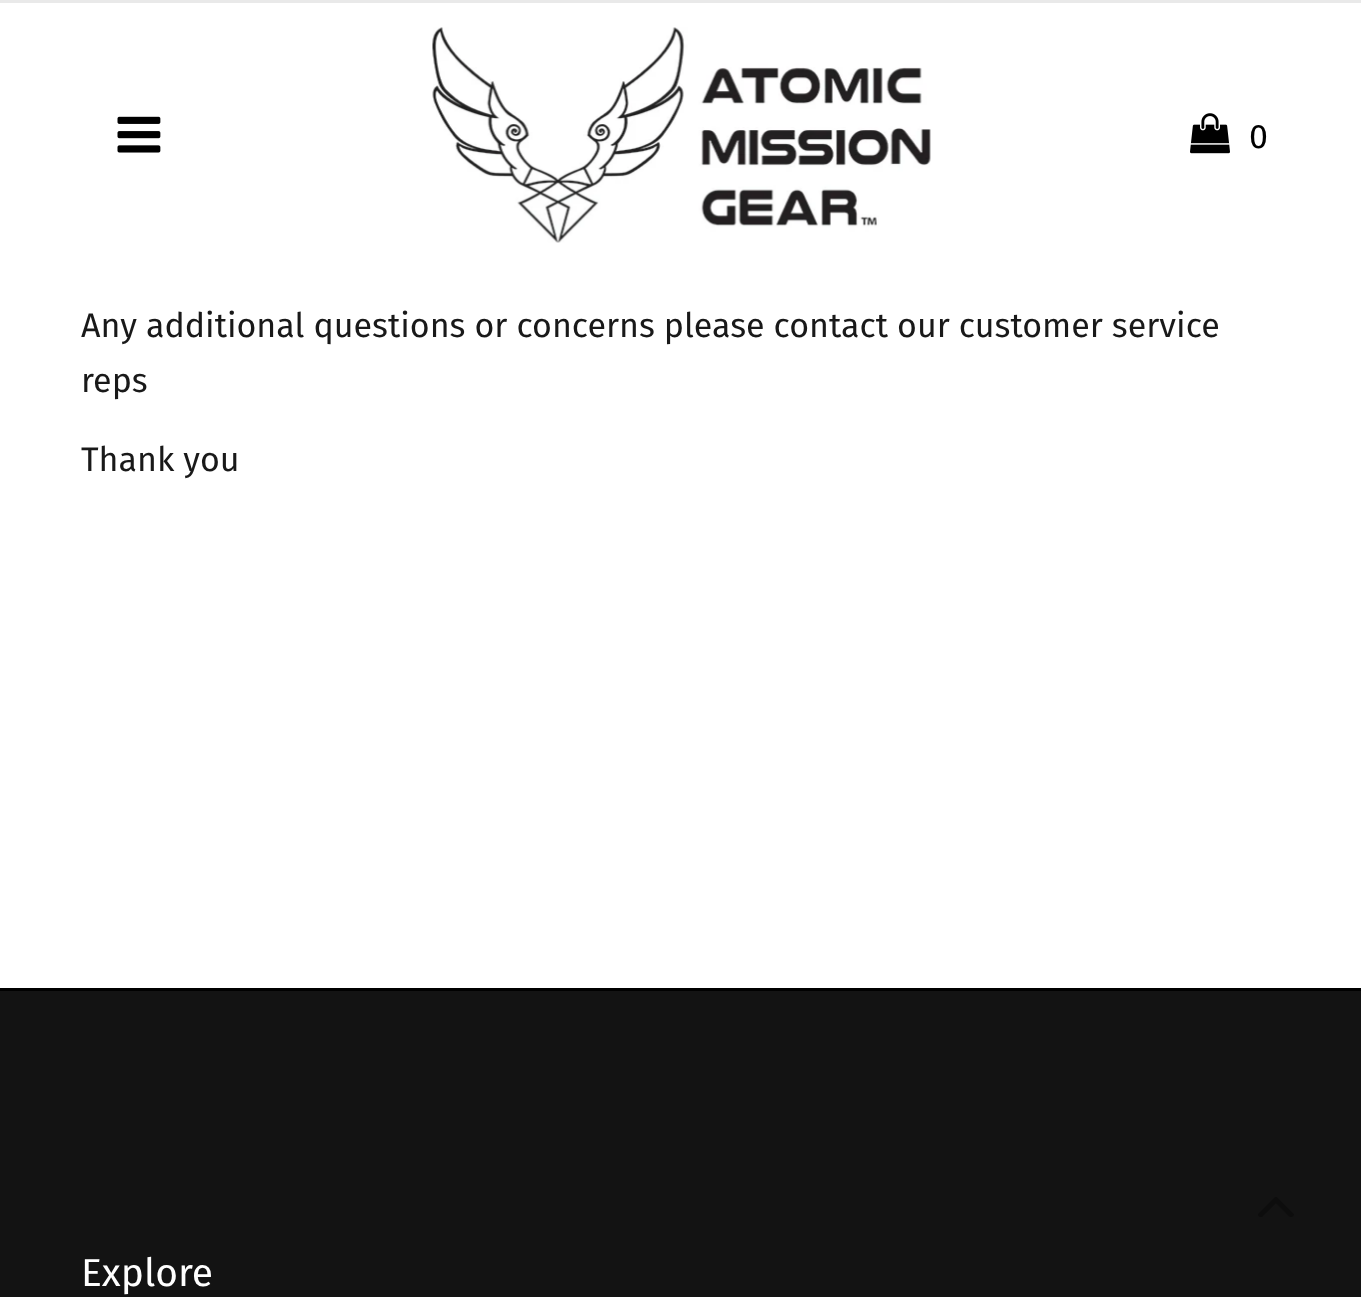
<svg xmlns="http://www.w3.org/2000/svg" width="1361" height="1297" viewBox="0 0 1361 1297">
  <style>
    .t1 { font: 34px Fira Sans; fill: #000; }
    .t2 { font: 34px Fira Sans; fill: #191919; }
    .t3 { font: 39px Fira Sans; fill: #fff; }
  </style>
  <rect width="100%" height="100%" fill="#fff"/>
  <rect x="0" y="0" width="1361" height="3" fill="#e9e9e9"/>
  <image x="117" y="116" width="44" height="37" href="images/1.png"/>
  <image x="432" y="27" width="499" height="216" href="images/2.png"/>
  <image x="1190" y="113" width="40" height="41" href="images/3.png"/>
  <text x="1249" y="148" class="t1">0</text>
  <text x="81" y="337" class="t2">Any additional questions or concerns please contact our customer service</text>
  <text x="81" y="392" class="t2">reps</text>
  <text x="81" y="471" class="t2">Thank you</text>
  <rect x="0" y="991" width="1361" height="306" fill="#131313"/>
  <rect x="0" y="988" width="1361" height="3" fill="#000"/>
  <text x="81" y="1286" class="t3">Explore</text>
  <image x="1258" y="1197" width="36" height="20" href="images/4.png"/>
</svg>
